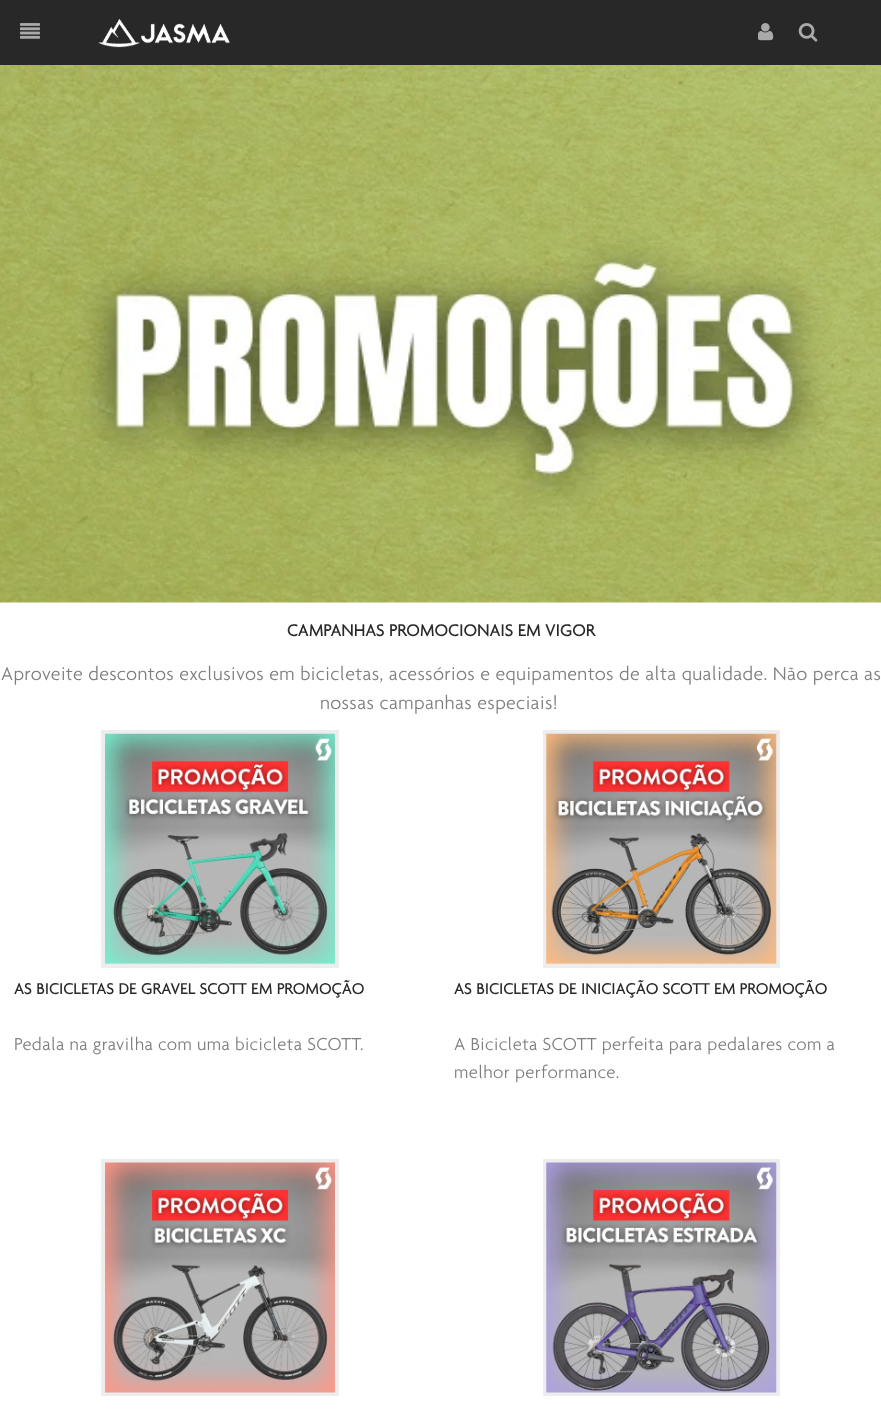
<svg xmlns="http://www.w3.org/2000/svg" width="881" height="1417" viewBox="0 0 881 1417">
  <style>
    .t1 { font: bold 17.5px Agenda; letter-spacing: 0.35px; fill: #282828; }
    .t2 { font: 300 20px Agenda; letter-spacing: 0.38px; fill: #7e7e7e; }
    .t3 { font: bold 16.25px Agenda; letter-spacing: 0.35px; fill: #282828; }
    .t4 { font: 300 18.75px Agenda; letter-spacing: 0.38px; fill: #7e7e7e; }
  </style>
  <rect width="100%" height="100%" fill="#fff"/>
  <rect x="0" y="0" width="881" height="65" fill="#282828"/>
  <image x="20" y="23" width="20" height="16" href="images/1.png"/>
  <image x="98" y="19" width="132" height="29" href="images/2.png"/>
  <image x="758" y="23" width="16" height="18" href="images/3.png"/>
  <image x="798" y="23" width="20" height="19" href="images/4.png"/>
  <image x="0" y="65" width="881" height="538" href="images/5.png"/>
  <text x="287" y="636" class="t1">CAMPANHAS PROMOCIONAIS EM VIGOR</text>
  <text x="1" y="680" class="t2">Aproveite descontos exclusivos em bicicletas, acessórios e equipamentos de alta qualidade. Não perca as</text>
  <text x="320" y="709" class="t2">nossas campanhas especiais!</text>
  <rect x="103" y="732" width="234" height="234" fill="none" stroke="#ededed" stroke-width="4"/>
  <image x="105" y="733" width="230" height="231" href="images/6.png"/>
  <text x="14" y="994" class="t3">AS BICICLETAS DE GRAVEL SCOTT EM PROMOÇÃO</text>
  <text x="14" y="1050" class="t4">Pedala na gravilha com uma bicicleta SCOTT.</text>
  <rect x="545" y="732" width="233" height="234" fill="none" stroke="#ededed" stroke-width="4"/>
  <image x="546" y="733" width="231" height="231" href="images/7.png"/>
  <text x="454" y="994" class="t3">AS BICICLETAS DE INICIAÇÃO SCOTT EM PROMOÇÃO</text>
  <text x="454" y="1050" class="t4">A Bicicleta SCOTT perfeita para pedalares com a</text>
  <text x="454" y="1078" class="t4">melhor performance.</text>
  <rect x="103" y="1161" width="234" height="233" fill="none" stroke="#ededed" stroke-width="4"/>
  <image x="105" y="1162" width="230" height="231" href="images/8.png"/>
  <rect x="545" y="1161" width="233" height="233" fill="none" stroke="#ededed" stroke-width="4"/>
  <image x="546" y="1162" width="231" height="231" href="images/9.png"/>
</svg>
